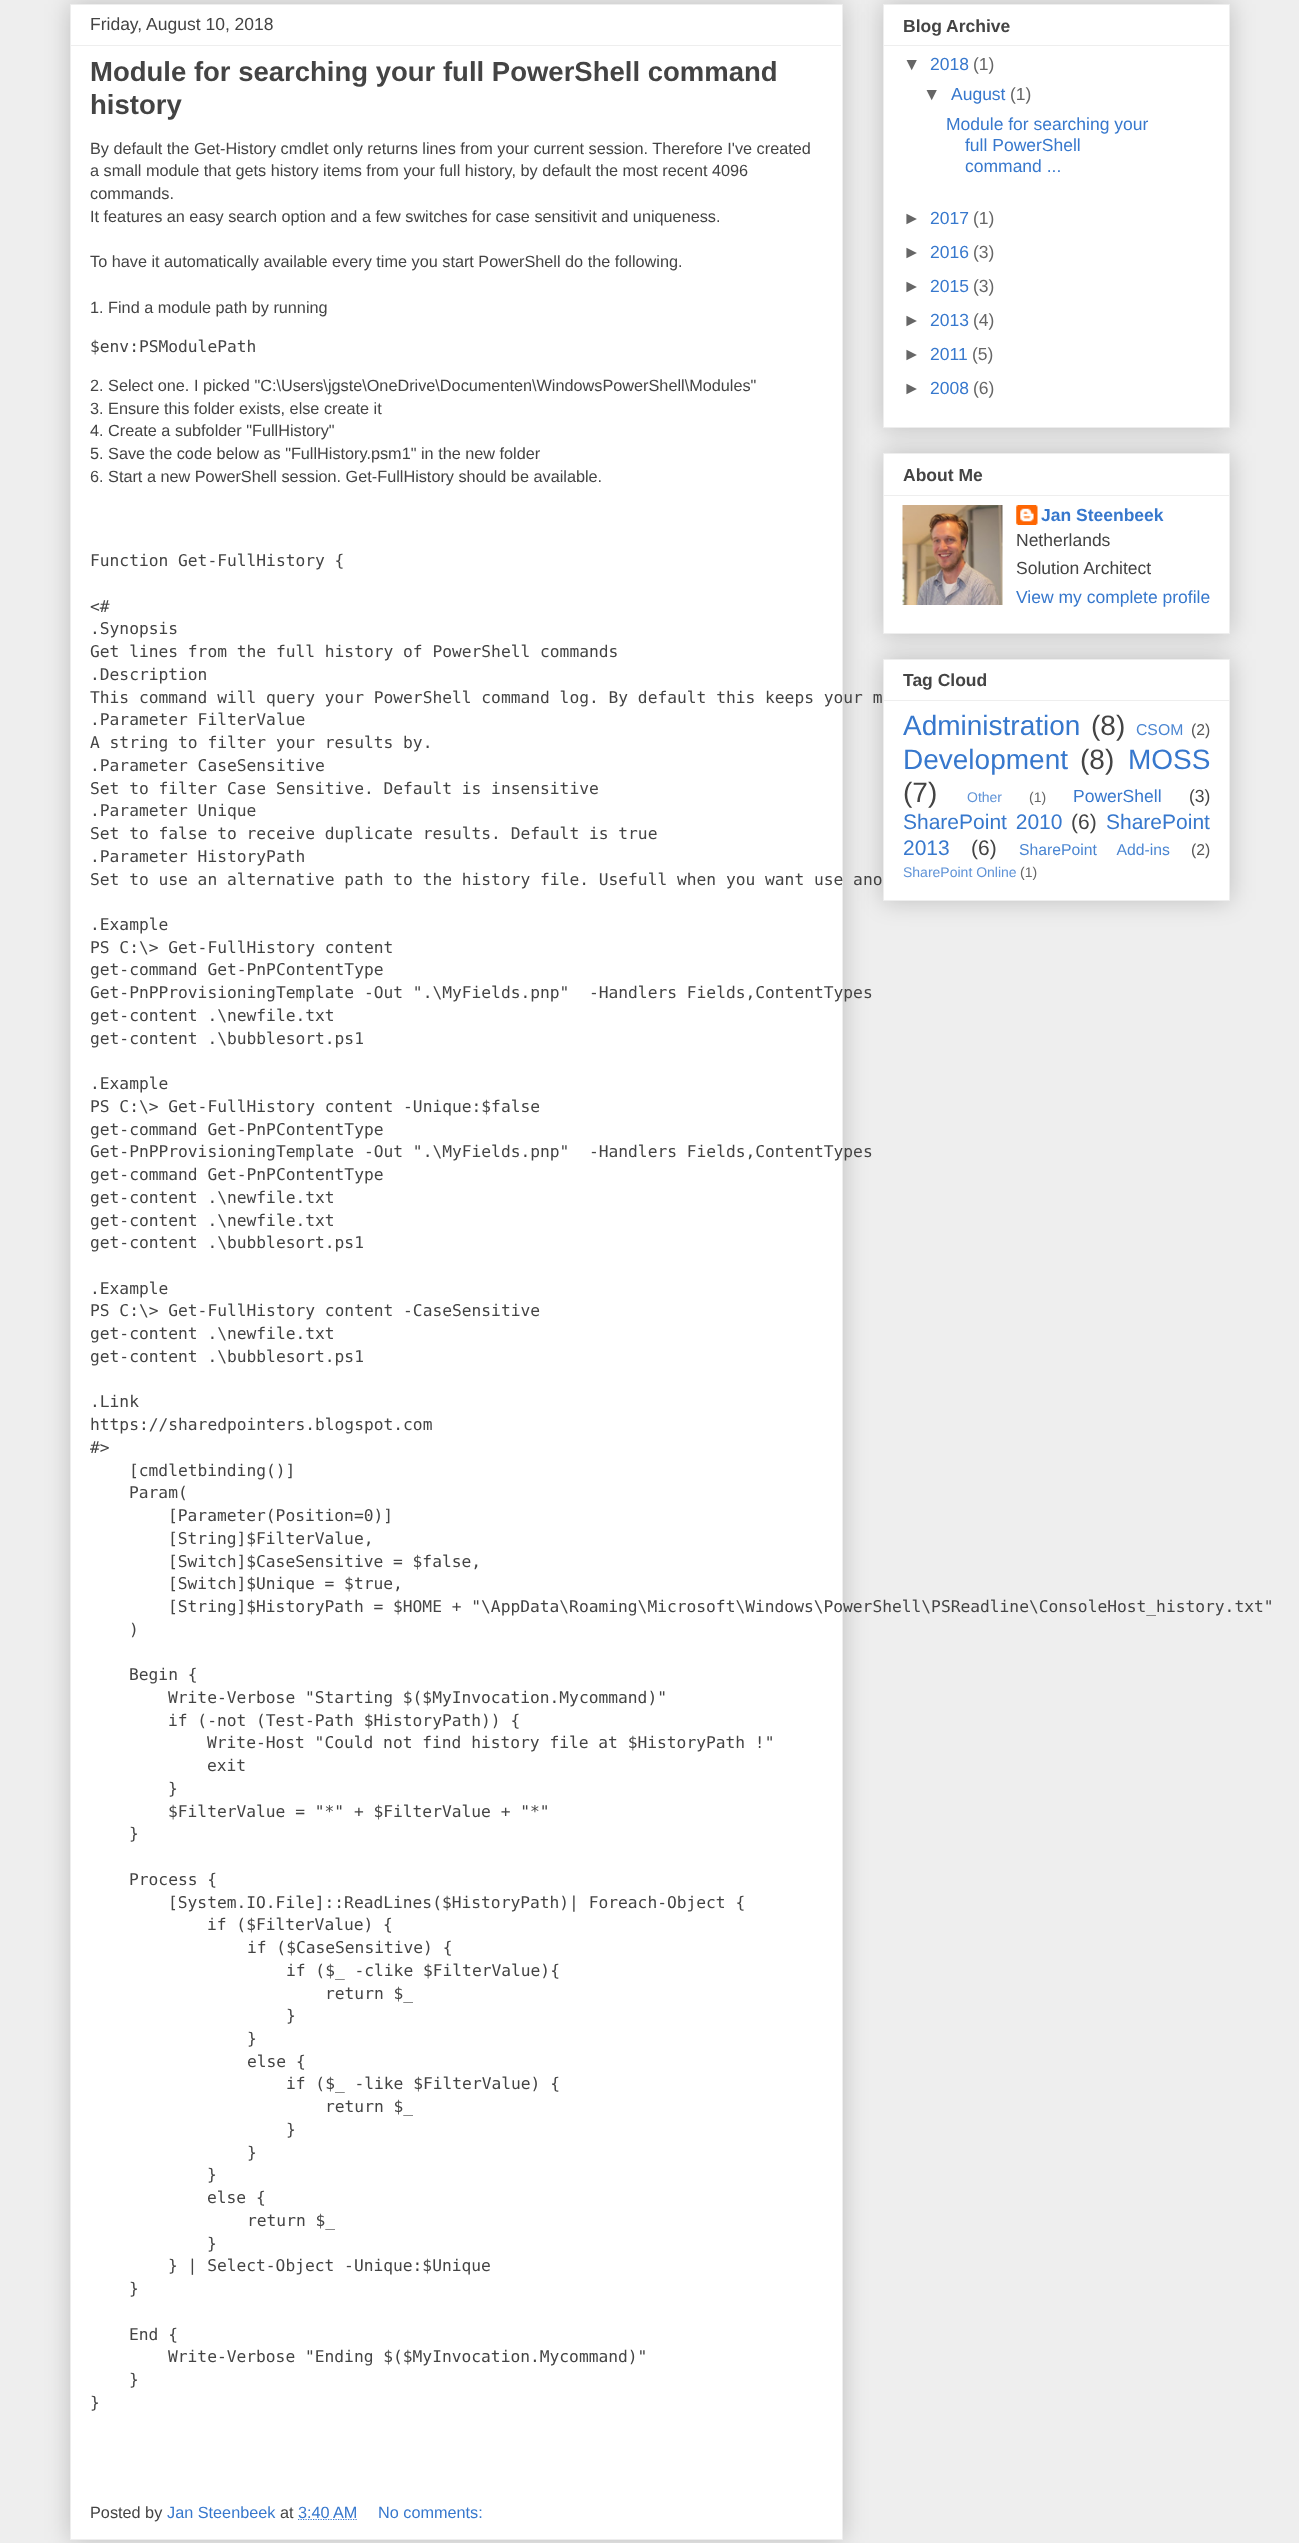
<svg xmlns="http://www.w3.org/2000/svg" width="1299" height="2543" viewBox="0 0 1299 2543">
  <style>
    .t1 { font: 17.5px Liberation Sans; fill: #444; }
    .t2 { font: bold 27.5px Liberation Sans; fill: #444; }
    .t3 { font: 16.25px Liberation Sans; fill: #444; }
    .t4 { font: 16.25px DejaVu Sans Mono; fill: #444; }
    .t5 { font: 16.25px Liberation Sans; fill: #3778cd; }
    .t6 { font: bold 17.5px Liberation Sans; fill: #444; }
    .t7 { font: 17.5px Liberation Sans; fill: #666; }
    .t8 { font: 17.5px Liberation Sans; fill: #3778cd; }
    .t9 { font: bold 17.5px Liberation Sans; fill: #3778cd; }
    .t10 { font: 28px Liberation Sans; fill: #3778cd; }
    .t11 { font: 28px Liberation Sans; fill: #444; }
    .t12 { font: 15.75px Liberation Sans; fill: #4b86d2; }
    .t13 { font: 15.75px Liberation Sans; fill: #575757; }
    .t14 { font: 14px Liberation Sans; fill: #5f93d7; }
    .t15 { font: 14px Liberation Sans; fill: #666; }
    .t16 { font: 21px Liberation Sans; fill: #3778cd; }
    .t17 { font: 21px Liberation Sans; fill: #444; }
  </style>
  <rect width="100%" height="100%" fill="#eee"/>
  <rect x="70" y="4" width="773" height="2536" fill="#00000033" filter="blur(12.5px)"/>
  <rect x="70.5" y="4.5" width="772" height="2535" fill="#fff" stroke="#eee"/>
  <text x="90" y="30" class="t1">Friday, August 10, 2018</text>
  <rect x="71" y="45" width="770" height="1" fill="#eee"/>
  <text x="90" y="81" class="t2">Module for searching your full PowerShell command</text>
  <text x="90" y="114" class="t2">history</text>
  <text x="90" y="154" class="t3">By default the Get-History cmdlet only returns lines from your current session. Therefore I've created</text>
  <text x="90" y="176" class="t3">a small module that gets history items from your full history, by default the most recent 4096</text>
  <text x="90" y="199" class="t3">commands.</text>
  <text x="90" y="222" class="t3">It features an easy search option and a few switches for case sensitivit and uniqueness.</text>
  <text x="90" y="267" class="t3">To have it automatically available every time you start PowerShell do the following.</text>
  <text x="90" y="313" class="t3">1. Find a module path by running</text>
  <text x="90" y="352" class="t4">$env:PSModulePath</text>
  <text x="90" y="391" class="t3">2. Select one. I picked "C:\Users\jgste\OneDrive\Documenten\WindowsPowerShell\Modules"</text>
  <text x="90" y="414" class="t3">3. Ensure this folder exists, else create it</text>
  <text x="90" y="436" class="t3">4. Create a subfolder "FullHistory"</text>
  <text x="90" y="459" class="t3">5. Save the code below as "FullHistory.psm1" in the new folder</text>
  <text x="90" y="482" class="t3">6. Start a new PowerShell session. Get-FullHistory should be available.</text>
  <text x="90" y="566" class="t4">Function Get-FullHistory {</text>
  <text x="90" y="612" class="t4">&lt;#</text>
  <text x="90" y="634" class="t4">.Synopsis</text>
  <text x="90" y="657" class="t4">Get lines from the full history of PowerShell commands</text>
  <text x="90" y="680" class="t4">.Description</text>
  <text x="90" y="703" class="t4">This command will query your PowerShell command log. By default this keeps your m</text>
  <text x="90" y="725" class="t4">.Parameter FilterValue</text>
  <text x="90" y="748" class="t4">A string to filter your results by.</text>
  <text x="90" y="771" class="t4">.Parameter CaseSensitive</text>
  <text x="90" y="794" class="t4">Set to filter Case Sensitive. Default is insensitive</text>
  <text x="90" y="816" class="t4">.Parameter Unique</text>
  <text x="90" y="839" class="t4">Set to false to receive duplicate results. Default is true</text>
  <text x="90" y="862" class="t4">.Parameter HistoryPath</text>
  <text x="90" y="885" class="t4">Set to use an alternative path to the history file. Usefull when you want use ano</text>
  <text x="90" y="930" class="t4">.Example</text>
  <text x="90" y="953" class="t4">PS C:\&gt; Get-FullHistory content</text>
  <text x="90" y="975" class="t4">get-command Get-PnPContentType</text>
  <text x="90" y="998" class="t4" xml:space="preserve">Get-PnPProvisioningTemplate -Out ".\MyFields.pnp"  -Handlers Fields,ContentTypes</text>
  <text x="90" y="1021" class="t4">get-content .\newfile.txt</text>
  <text x="90" y="1044" class="t4">get-content .\bubblesort.ps1</text>
  <text x="90" y="1089" class="t4">.Example</text>
  <text x="90" y="1112" class="t4">PS C:\&gt; Get-FullHistory content -Unique:$false</text>
  <text x="90" y="1135" class="t4">get-command Get-PnPContentType</text>
  <text x="90" y="1157" class="t4" xml:space="preserve">Get-PnPProvisioningTemplate -Out ".\MyFields.pnp"  -Handlers Fields,ContentTypes</text>
  <text x="90" y="1180" class="t4">get-command Get-PnPContentType</text>
  <text x="90" y="1203" class="t4">get-content .\newfile.txt</text>
  <text x="90" y="1226" class="t4">get-content .\newfile.txt</text>
  <text x="90" y="1248" class="t4">get-content .\bubblesort.ps1</text>
  <text x="90" y="1294" class="t4">.Example</text>
  <text x="90" y="1316" class="t4">PS C:\&gt; Get-FullHistory content -CaseSensitive</text>
  <text x="90" y="1339" class="t4">get-content .\newfile.txt</text>
  <text x="90" y="1362" class="t4">get-content .\bubblesort.ps1</text>
  <text x="90" y="1407" class="t4">.Link</text>
  <text x="90" y="1430" class="t4">https://sharedpointers.blogspot.com</text>
  <text x="90" y="1453" class="t4">#&gt;</text>
  <text x="129" y="1476" class="t4">[cmdletbinding()]</text>
  <text x="129" y="1498" class="t4">Param(</text>
  <text x="168" y="1521" class="t4">[Parameter(Position=0)]</text>
  <text x="168" y="1544" class="t4">[String]$FilterValue,</text>
  <text x="168" y="1567" class="t4">[Switch]$CaseSensitive = $false,</text>
  <text x="168" y="1589" class="t4">[Switch]$Unique = $true,</text>
  <text x="168" y="1612" class="t4">[String]$HistoryPath = $HOME + "\AppData\Roaming\Microsoft\Windows\PowerShell\PSReadline\ConsoleHost_history.txt"</text>
  <text x="129" y="1635" class="t4">)</text>
  <text x="129" y="1680" class="t4">Begin {</text>
  <text x="168" y="1703" class="t4">Write-Verbose "Starting $($MyInvocation.Mycommand)"</text>
  <text x="168" y="1726" class="t4">if (-not (Test-Path $HistoryPath)) {</text>
  <text x="207" y="1748" class="t4">Write-Host "Could not find history file at $HistoryPath !"</text>
  <text x="207" y="1771" class="t4">exit</text>
  <text x="168" y="1794" class="t4">}</text>
  <text x="168" y="1817" class="t4">$FilterValue = "*" + $FilterValue + "*"</text>
  <text x="129" y="1839" class="t4">}</text>
  <text x="129" y="1885" class="t4">Process {</text>
  <text x="168" y="1908" class="t4">[System.IO.File]::ReadLines($HistoryPath)| Foreach-Object {</text>
  <text x="207" y="1930" class="t4">if ($FilterValue) {</text>
  <text x="247" y="1953" class="t4">if ($CaseSensitive) {</text>
  <text x="286" y="1976" class="t4">if ($_ -clike $FilterValue){</text>
  <text x="325" y="1999" class="t4">return $_</text>
  <text x="286" y="2021" class="t4">}</text>
  <text x="247" y="2044" class="t4">}</text>
  <text x="247" y="2067" class="t4">else {</text>
  <text x="286" y="2089" class="t4">if ($_ -like $FilterValue) {</text>
  <text x="325" y="2112" class="t4">return $_</text>
  <text x="286" y="2135" class="t4">}</text>
  <text x="247" y="2158" class="t4">}</text>
  <text x="207" y="2180" class="t4">}</text>
  <text x="207" y="2203" class="t4">else {</text>
  <text x="247" y="2226" class="t4">return $_</text>
  <text x="207" y="2249" class="t4">}</text>
  <text x="168" y="2271" class="t4">} | Select-Object -Unique:$Unique</text>
  <text x="129" y="2294" class="t4">}</text>
  <text x="129" y="2340" class="t4">End {</text>
  <text x="168" y="2362" class="t4">Write-Verbose "Ending $($MyInvocation.Mycommand)"</text>
  <text x="129" y="2385" class="t4">}</text>
  <text x="90" y="2408" class="t4">}</text>
  <text x="90" y="2518" class="t3">Posted by</text>
  <text x="167" y="2518" class="t5">Jan Steenbeek</text>
  <text x="280" y="2518" class="t3">at</text>
  <path d="M298 2519.5H357" fill="none" stroke="#3778cd" stroke-width="1.2" stroke-dasharray="1.25 1.25"/>
  <text x="298" y="2518" class="t5">3:40 AM</text>
  <text x="378" y="2518" class="t5">No comments:</text>
  <rect x="883" y="4" width="347" height="424" fill="#00000033" filter="blur(12.5px)"/>
  <rect x="883.5" y="4.5" width="346" height="423" fill="#fff" stroke="#eee"/>
  <text x="903" y="32" class="t6">Blog Archive</text>
  <rect x="884" y="45" width="345" height="1" fill="#eee"/>
  <text x="903" y="70" class="t7">▼</text>
  <text x="930" y="70" class="t8">2018</text>
  <text x="973" y="70" class="t7">(1)</text>
  <text x="923" y="100" class="t7">▼</text>
  <text x="951" y="100" class="t8">August</text>
  <text x="1010" y="100" class="t7">(1)</text>
  <text x="946" y="130" class="t8">Module for searching your</text>
  <text x="965" y="151" class="t8">full PowerShell</text>
  <text x="965" y="172" class="t8">command ...</text>
  <text x="903" y="224" class="t7">►</text>
  <text x="930" y="224" class="t8">2017</text>
  <text x="973" y="224" class="t7">(1)</text>
  <text x="903" y="258" class="t7">►</text>
  <text x="930" y="258" class="t8">2016</text>
  <text x="973" y="258" class="t7">(3)</text>
  <text x="903" y="292" class="t7">►</text>
  <text x="930" y="292" class="t8">2015</text>
  <text x="973" y="292" class="t7">(3)</text>
  <text x="903" y="326" class="t7">►</text>
  <text x="930" y="326" class="t8">2013</text>
  <text x="973" y="326" class="t7">(4)</text>
  <text x="903" y="360" class="t7">►</text>
  <text x="930" y="360" class="t8">2011</text>
  <text x="972" y="360" class="t7">(5)</text>
  <text x="903" y="394" class="t7">►</text>
  <text x="930" y="394" class="t8">2008</text>
  <text x="973" y="394" class="t7">(6)</text>
  <rect x="883" y="453" width="347" height="181" fill="#00000033" filter="blur(12.5px)"/>
  <rect x="883.5" y="453.5" width="346" height="180" fill="#fff" stroke="#eee"/>
  <text x="903" y="481" class="t6">About Me</text>
  <rect x="884" y="495" width="345" height="1" fill="#eee"/>
  <image x="902" y="505" width="101" height="100" href="images/1.png"/>
  <image x="1016" y="505" width="22" height="20" href="images/2.png"/>
  <text x="1041" y="521" class="t9">Jan Steenbeek</text>
  <text x="1016" y="546" class="t1">Netherlands</text>
  <text x="1016" y="574" class="t1">Solution Architect</text>
  <text x="1016" y="603" class="t8">View my complete profile</text>
  <rect x="883" y="659" width="347" height="242" fill="#00000033" filter="blur(12.5px)"/>
  <rect x="883.5" y="659.5" width="346" height="241" fill="#fff" stroke="#eee"/>
  <text x="903" y="686" class="t6">Tag Cloud</text>
  <rect x="884" y="700" width="345" height="1" fill="#eee"/>
  <text x="903" y="735" class="t10">Administration</text>
  <text x="1091" y="735" class="t11">(8)</text>
  <text x="1136" y="735" class="t12">CSOM</text>
  <text x="1191" y="735" class="t13">(2)</text>
  <text x="903" y="769" class="t10">Development</text>
  <text x="1080" y="769" class="t11">(8)</text>
  <text x="1128" y="769" class="t10">MOSS</text>
  <text x="903" y="802" class="t11">(7)</text>
  <text x="967" y="802" class="t14">Other</text>
  <text x="1029" y="802" class="t15">(1)</text>
  <text x="1073" y="802" class="t8">PowerShell</text>
  <text x="1189" y="802" class="t1">(3)</text>
  <text x="903" y="829" word-spacing="3" class="t16">SharePoint 2010</text>
  <text x="1071" y="829" class="t17">(6)</text>
  <text x="1106" y="829" class="t16">SharePoint</text>
  <text x="903" y="855" class="t16">2013</text>
  <text x="971" y="855" class="t17">(6)</text>
  <text x="1019" y="855" word-spacing="16" class="t12">SharePoint Add-ins</text>
  <text x="1191" y="855" class="t13">(2)</text>
  <text x="903" y="877" class="t14">SharePoint Online</text>
  <text x="1020" y="877" class="t15">(1)</text>
</svg>
